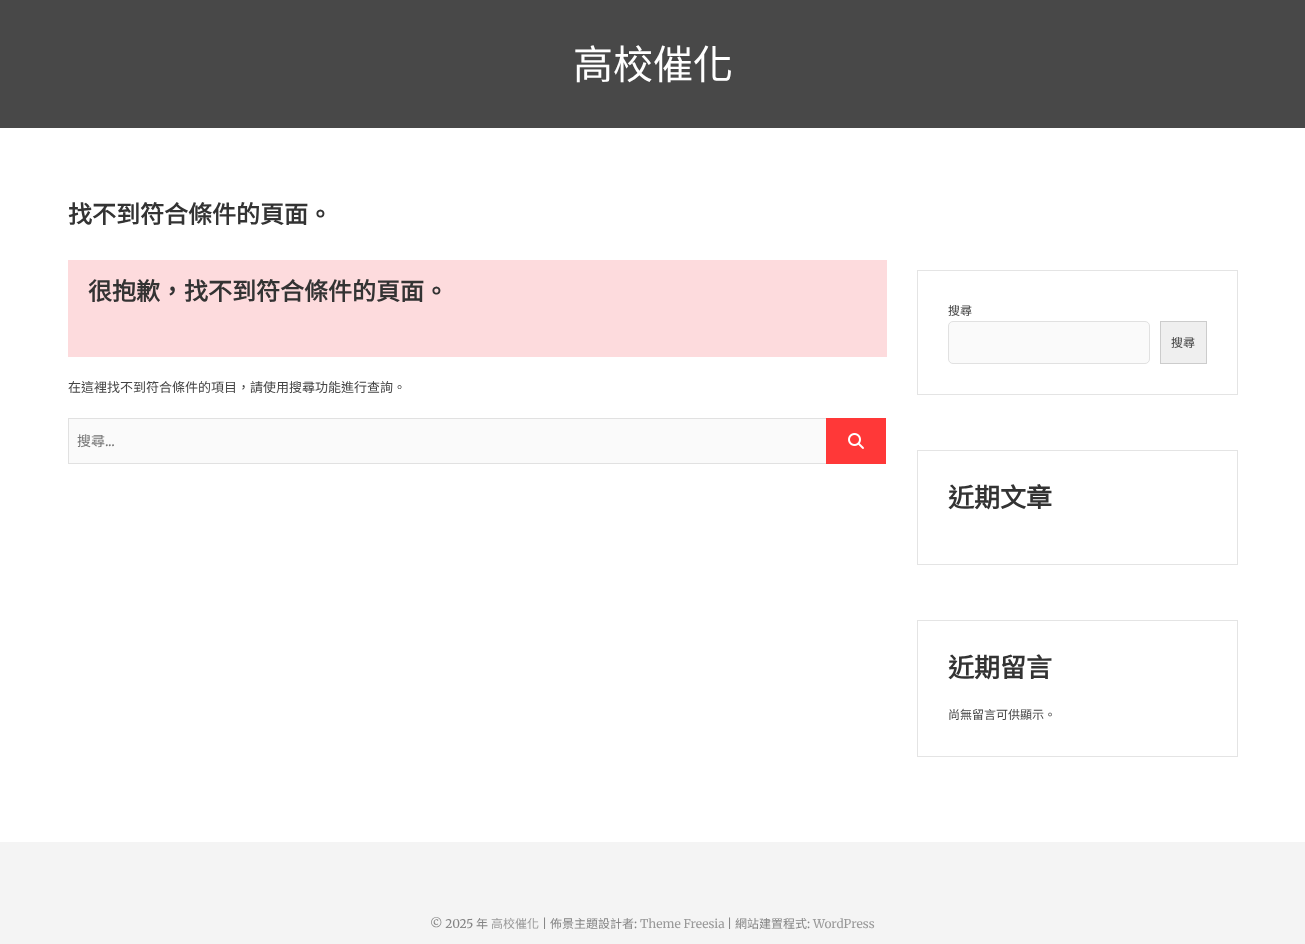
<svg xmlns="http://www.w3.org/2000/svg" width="1305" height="944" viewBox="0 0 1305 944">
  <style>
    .t1 { font: 40px Noto Sans CJK TC; fill: #fff; }
    .t2 { font: bold 24px Noto Sans CJK TC; fill: #333; }
    .t3 { font: 13px Noto Sans CJK TC; fill: #444; }
    .t4 { font: 14px Noto Sans CJK TC; fill: #757575; }
    .t5 { font: 300 14px Merriweather; fill: #757575; }
    .t6 { font: 12px Noto Sans CJK TC; fill: #444; }
    .t7 { font: bold 26px Noto Sans CJK TC; fill: #333; }
    .t8 { font: 300 12px Merriweather; fill: #848484; }
    .t9 { font: 12px Noto Sans CJK TC; fill: #848484; }
    .t10 { font: 12px Noto Sans CJK TC; fill: #999; }
    .t11 { font: 300 12px Merriweather; fill: #999; }
  </style>
  <rect width="100%" height="100%" fill="#fff"/>
  <rect x="0" y="0" width="1305" height="128" fill="#484848"/>
  <text x="573" y="79" class="t1">高校催化</text>
  <text x="68" y="223" class="t2">找不到符合條件的頁面。</text>
  <rect x="68" y="260" width="819" height="97" fill="#fddbdd"/>
  <text x="88" y="300" class="t2">很抱歉，找不到符合條件的頁面。</text>
  <text x="68" y="392" class="t3">在這裡找不到符合條件的項目，請使用搜尋功能進行查詢。</text>
  <rect x="68.5" y="418.5" width="758" height="45" fill="#fafafa" stroke="#e1e1e1"/>
  <text x="77" y="446" class="t4">搜尋</text>
  <text x="105" y="446" class="t5">...</text>
  <rect x="826" y="418" width="60" height="46" fill="#ff3838"/>
  <image x="848" y="433" width="16" height="16" href="images/1.png"/>
  <rect x="917.5" y="270.5" width="320" height="124" fill="none" stroke="#e4e4e4"/>
  <text x="948" y="315" class="t6">搜尋</text>
  <rect x="948.5" y="321.5" width="201" height="42" rx="4.5" fill="#fafafa" stroke="#e1e1e1"/>
  <rect x="1160.5" y="321.5" width="46" height="42" fill="#efefef" stroke="#ccc"/>
  <text x="1171" y="347" class="t6">搜尋</text>
  <rect x="917.5" y="450.5" width="320" height="114" fill="none" stroke="#e4e4e4"/>
  <text x="948" y="507" class="t7">近期文章</text>
  <rect x="917.5" y="620.5" width="320" height="136" fill="none" stroke="#e4e4e4"/>
  <text x="948" y="677" class="t7">近期留言</text>
  <text x="948" y="719" class="t6">尚無留言可供顯示。</text>
  <rect x="0" y="842" width="1305" height="102" fill="#f4f4f4"/>
  <text x="430" y="928" class="t8">© 2025</text>
  <text x="476" y="928" class="t9">年</text>
  <text x="491" y="928" class="t10">高校催化</text>
  <text x="542" y="928" class="t8">|</text>
  <text x="550" y="928" class="t9">佈景主題設計者</text>
  <text x="634" y="928" class="t8">:</text>
  <text x="640" y="928" class="t11">Theme Freesia</text>
  <text x="727" y="928" class="t8">|</text>
  <text x="735" y="928" class="t9">網站建置程式</text>
  <text x="807" y="928" class="t8">:</text>
  <text x="813" y="928" class="t11">WordPress</text>
</svg>
